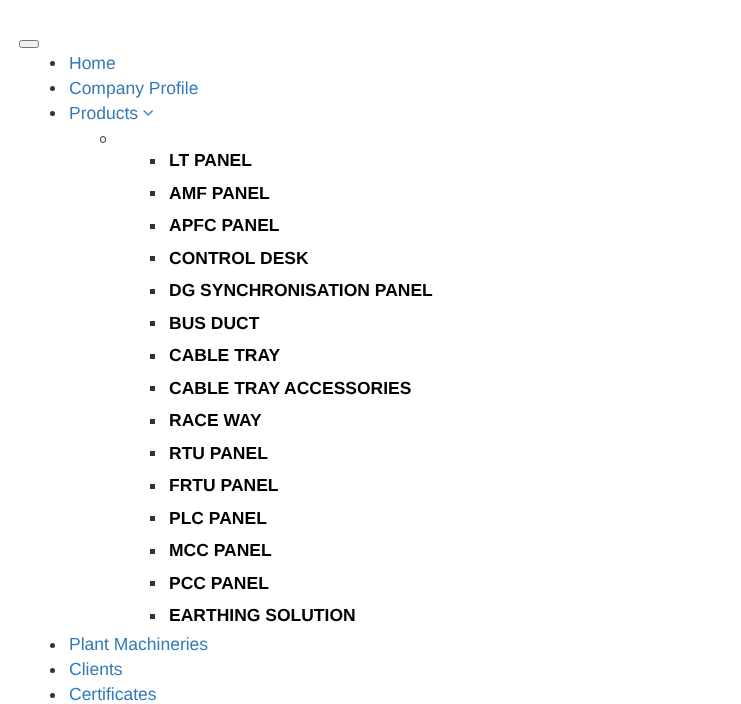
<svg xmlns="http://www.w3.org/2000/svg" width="741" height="704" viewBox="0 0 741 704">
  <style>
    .t1 { font: 17.5px Liberation Sans; fill: #337ab7; }
    .t2 { font: bold 17.5px Liberation Sans; fill: #000; }
  </style>
  <rect width="100%" height="100%" fill="#fff"/>
  <rect x="19.5" y="40.5" width="19" height="7" rx="2" fill="#efefef" stroke="#767676"/>
  <circle cx="52.5" cy="63.5" r="2.5" fill="#333"/>
  <text x="69" y="69" class="t1">Home</text>
  <circle cx="52.5" cy="88.5" r="2.5" fill="#333"/>
  <text x="69" y="94" class="t1">Company Profile</text>
  <circle cx="52.5" cy="113.5" r="2.5" fill="#333"/>
  <text x="69" y="119" class="t1">Products</text>
  <image x="143" y="110" width="10" height="6" href="images/1.png"/>
  <rect x="100.5" y="136.5" width="5" height="6" rx="2.5" fill="none" stroke="#333"/>
  <rect x="150" y="159" width="5" height="5" fill="#333"/>
  <text x="169" y="166" class="t2">LT PANEL</text>
  <rect x="150" y="191" width="5" height="5" fill="#333"/>
  <text x="169" y="199" class="t2">AMF PANEL</text>
  <rect x="150" y="224" width="5" height="5" fill="#333"/>
  <text x="169" y="231" class="t2">APFC PANEL</text>
  <rect x="150" y="256" width="5" height="5" fill="#333"/>
  <text x="169" y="264" class="t2">CONTROL DESK</text>
  <rect x="150" y="289" width="5" height="5" fill="#333"/>
  <text x="169" y="296" class="t2">DG SYNCHRONISATION PANEL</text>
  <rect x="150" y="321" width="5" height="5" fill="#333"/>
  <text x="169" y="329" class="t2">BUS DUCT</text>
  <rect x="150" y="354" width="5" height="5" fill="#333"/>
  <text x="169" y="361" class="t2">CABLE TRAY</text>
  <rect x="150" y="386" width="5" height="5" fill="#333"/>
  <text x="169" y="394" class="t2">CABLE TRAY ACCESSORIES</text>
  <rect x="150" y="419" width="5" height="5" fill="#333"/>
  <text x="169" y="426" class="t2">RACE WAY</text>
  <rect x="150" y="451" width="5" height="5" fill="#333"/>
  <text x="169" y="459" class="t2">RTU PANEL</text>
  <rect x="150" y="484" width="5" height="5" fill="#333"/>
  <text x="169" y="491" class="t2">FRTU PANEL</text>
  <rect x="150" y="516" width="5" height="5" fill="#333"/>
  <text x="169" y="524" class="t2">PLC PANEL</text>
  <rect x="150" y="549" width="5" height="5" fill="#333"/>
  <text x="169" y="556" class="t2">MCC PANEL</text>
  <rect x="150" y="581" width="5" height="5" fill="#333"/>
  <text x="169" y="589" class="t2">PCC PANEL</text>
  <rect x="150" y="614" width="5" height="5" fill="#333"/>
  <text x="169" y="621" class="t2">EARTHING SOLUTION</text>
  <circle cx="52.5" cy="645.5" r="2.5" fill="#333"/>
  <text x="69" y="650" class="t1">Plant Machineries</text>
  <circle cx="52.5" cy="670.5" r="2.5" fill="#333"/>
  <text x="69" y="675" class="t1">Clients</text>
  <circle cx="52.5" cy="695.5" r="2.5" fill="#333"/>
  <text x="69" y="700" class="t1">Certificates</text>
</svg>
